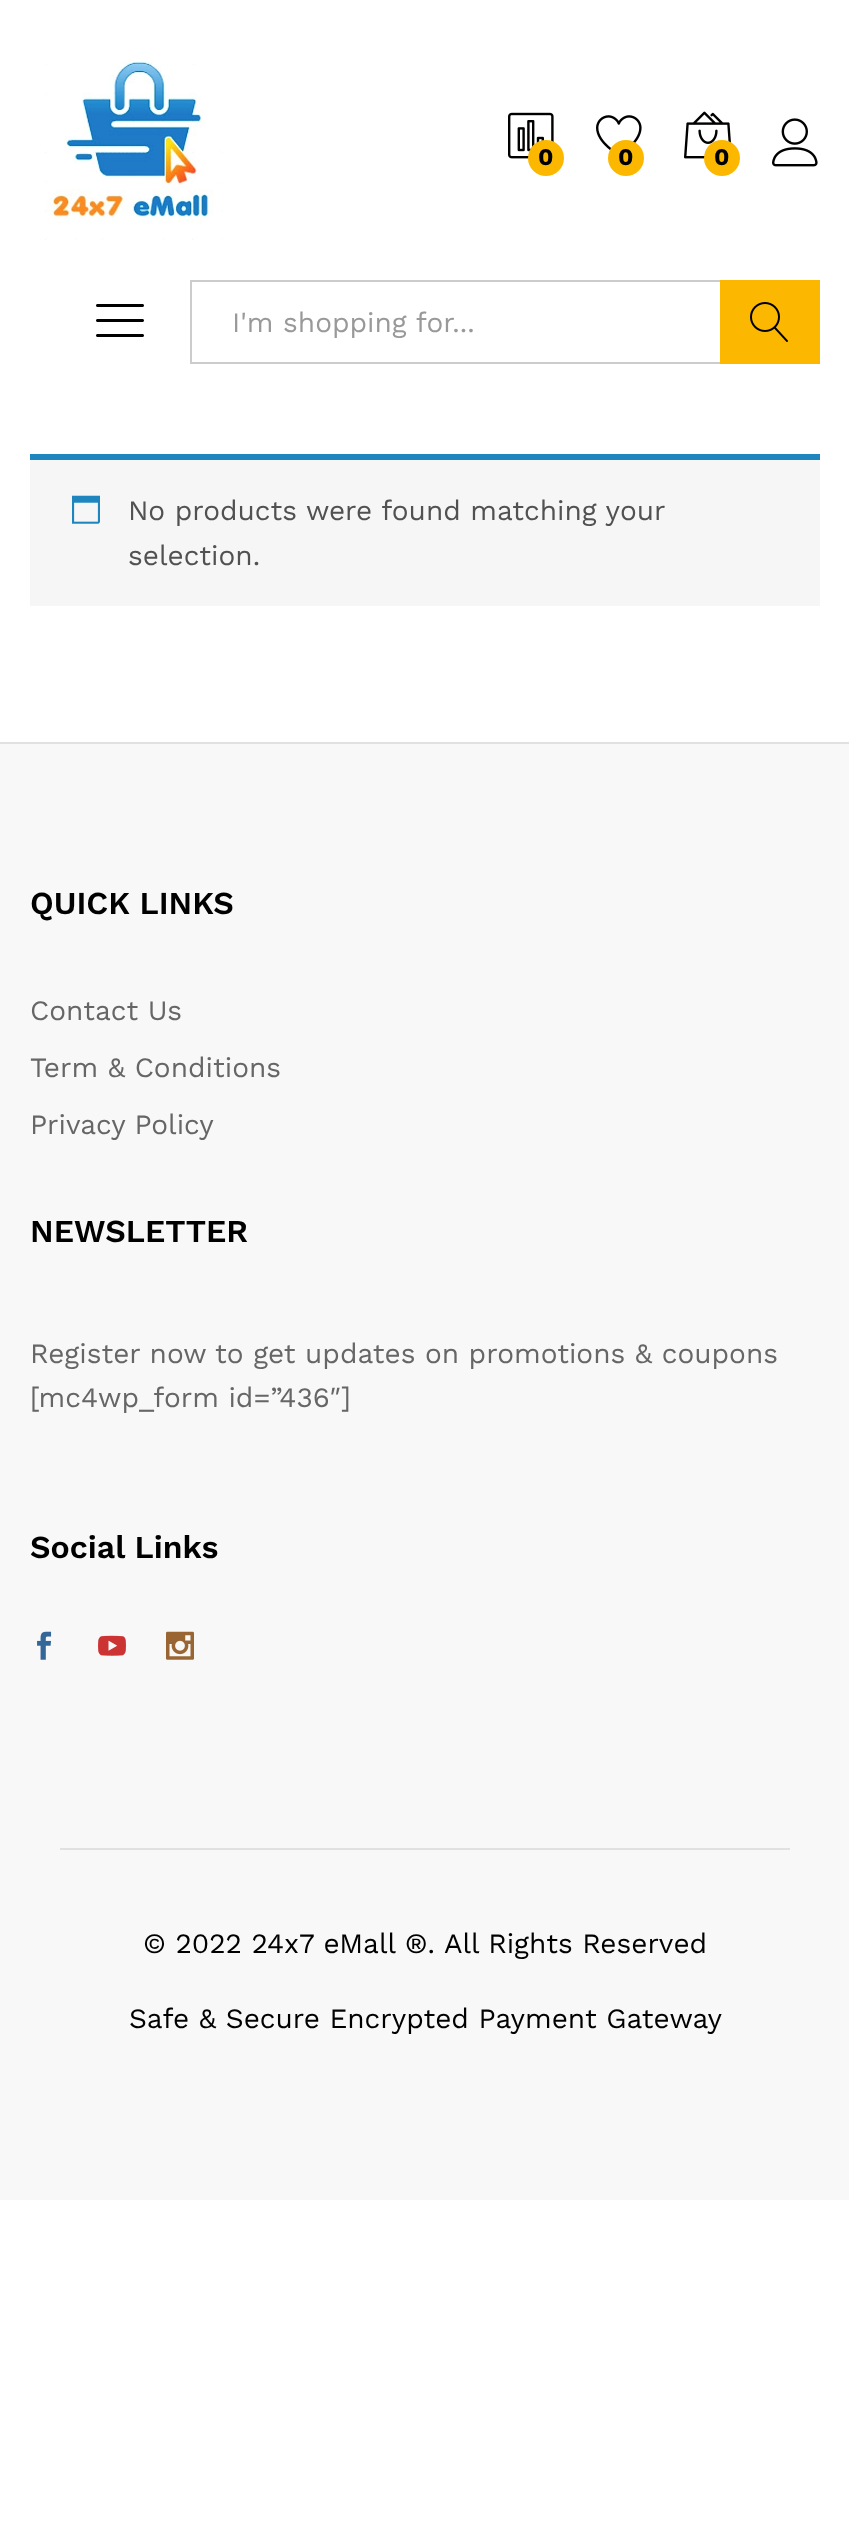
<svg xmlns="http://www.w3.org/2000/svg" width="849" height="2528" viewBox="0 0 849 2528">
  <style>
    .t1 { font: bold 24px Work Sans; fill: #000; }
    .t2 { font: 28px Work Sans; fill: #999; }
    .t3 { font: 28px Work Sans; fill: #515151; }
    .t4 { font: 600 32px Work Sans; fill: #000; }
    .t5 { font: 28px Work Sans; fill: #666; }
    .t6 { font: 28px Work Sans; fill: #000; }
  </style>
  <rect width="100%" height="100%" fill="#fff"/>
  <image x="45" y="60" width="178" height="180" href="images/1.png"/>
  <image x="508" y="112" width="46" height="47" href="images/2.png"/>
  <circle cx="546" cy="158" r="18" fill="#fcb800"/>
  <text x="538" y="165" class="t1">0</text>
  <image x="596" y="115" width="46" height="35" href="images/3.png"/>
  <circle cx="626" cy="158" r="18" fill="#fcb800"/>
  <text x="618" y="165" class="t1">0</text>
  <image x="684" y="111" width="47" height="48" href="images/4.png"/>
  <circle cx="722" cy="158" r="18" fill="#fcb800"/>
  <text x="714" y="165" class="t1">0</text>
  <image x="772" y="118" width="46" height="49" href="images/5.png"/>
  <image x="96" y="304" width="48" height="33" href="images/6.png"/>
  <rect x="190" y="280" width="530" height="2" fill="#ccc"/>
  <rect x="190" y="362" width="530" height="2" fill="#ccc"/>
  <rect x="190" y="280" width="2" height="84" fill="#ccc"/>
  <text x="232" y="332" class="t2">I'm shopping for...</text>
  <rect x="720" y="280" width="100" height="84" fill="#fcb800"/>
  <image x="750" y="302" width="38" height="40" href="images/7.png"/>
  <rect x="30" y="460" width="790" height="146" fill="#f7f6f7"/>
  <rect x="30" y="454" width="790" height="6" fill="#1e85be"/>
  <image x="72" y="495" width="28" height="29" href="images/8.png"/>
  <text x="128" y="520" class="t3">No products were found matching your</text>
  <text x="128" y="565" class="t3">selection.</text>
  <rect x="0" y="742" width="849" height="2" fill="#e1e1e1"/>
  <rect x="0" y="744" width="849" height="1456" fill="#f8f8f8"/>
  <text x="30" y="914" class="t4">QUICK LINKS</text>
  <text x="30" y="1020" class="t5">Contact Us</text>
  <text x="30" y="1077" class="t5">Term &amp; Conditions</text>
  <text x="30" y="1134" class="t5">Privacy Policy</text>
  <text x="30" y="1242" class="t4">NEWSLETTER</text>
  <text x="30" y="1363" class="t5">Register now to get updates on promotions &amp; coupons</text>
  <text x="30" y="1407" class="t5">[mc4wp_form id=”436″]</text>
  <text x="30" y="1558" class="t4">Social Links</text>
  <image x="37" y="1631" width="15" height="29" href="images/9.png"/>
  <image x="98" y="1635" width="28" height="21" href="images/10.png"/>
  <image x="166" y="1631" width="28" height="29" href="images/11.png"/>
  <rect x="60" y="1848" width="730" height="2" fill="#e1e1e1"/>
  <text x="143" y="1953" class="t6">© 2022 24x7 eMall ®.</text>
  <text x="444" y="1953" class="t6">All Rights Reserved</text>
  <text x="129" y="2028" class="t6">Safe &amp; Secure Encrypted Payment Gateway</text>
</svg>
